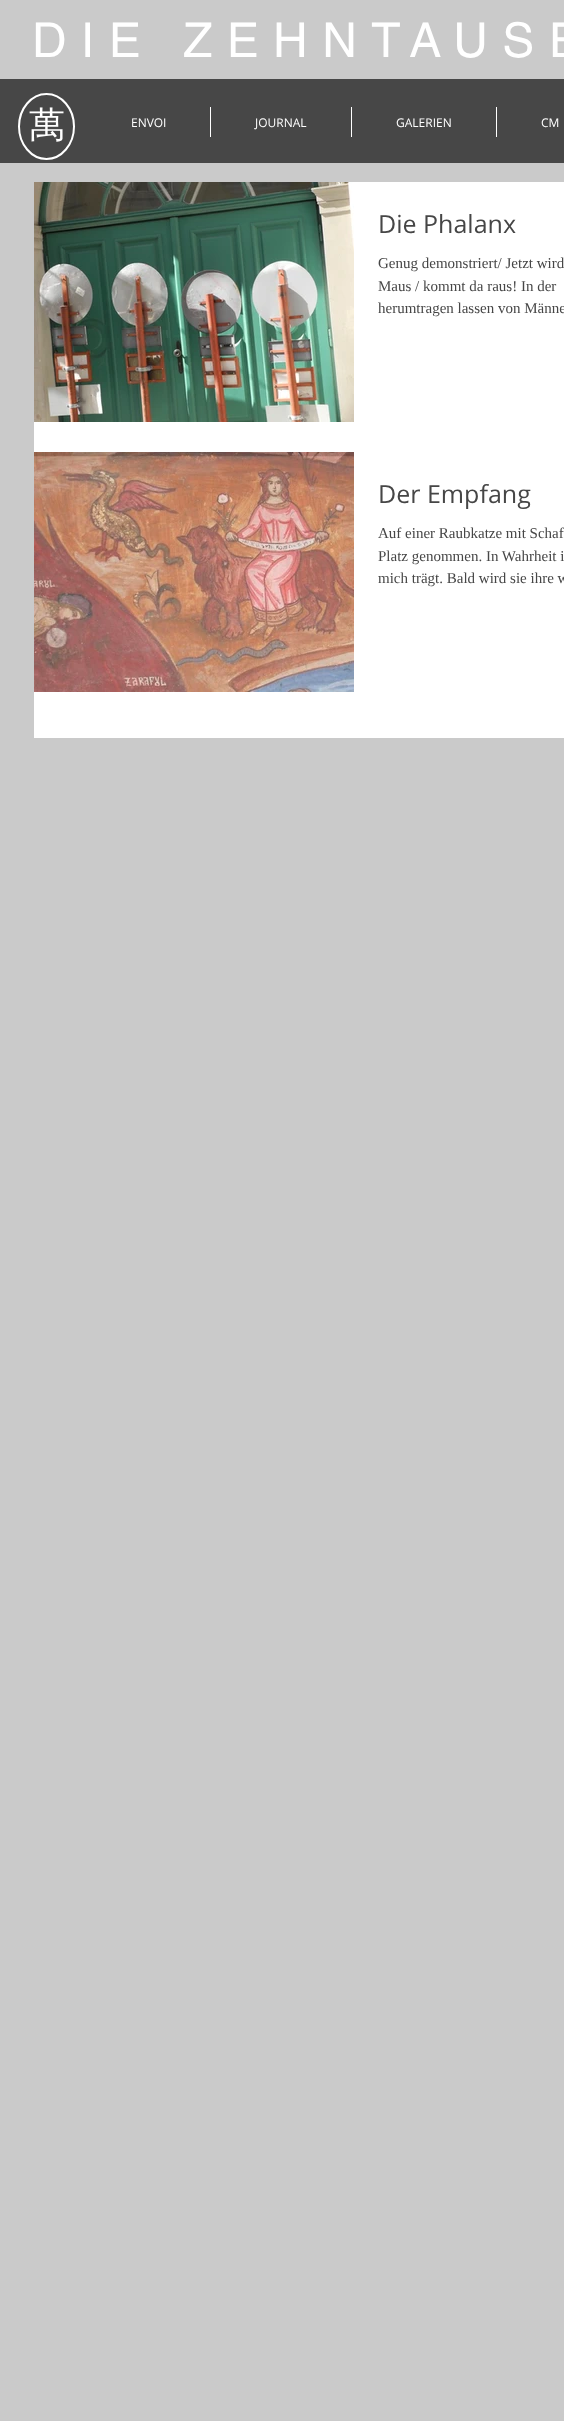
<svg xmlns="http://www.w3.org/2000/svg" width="564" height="2421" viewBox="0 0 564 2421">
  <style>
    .t1 { font: 48px helvetica; letter-spacing: 14.4px; fill: #fff; }
    .t2 { font: 500 36px WenQuanYi Zen Hei; fill: #fff; }
    .t3 { font: 12px Open Sans; fill: #fff; }
    .t4 { font: 25px Open Sans; fill: #464646; }
    .t5 { font: 15px Liberation Serif; fill: #464646; }
  </style>
  <rect width="100%" height="100%" fill="#cacaca"/>
  <text x="32" y="57" class="t1">DIE ZEHNTAUSE</text>
  <rect x="0" y="79" width="564" height="84" fill="#474747"/>
  <path d="M46.5 94C61.5 94 74 108.5 74 126.5C74 144.5 61.5 159 46.5 159C31.5 159 19 144.5 19 126.5C19 108.5 31.5 94 46.5 94Z" fill="none" stroke="#fff" stroke-width="2"/>
  <text x="29" y="137" class="t2">萬</text>
  <text x="131" y="127" class="t3">ENVOI</text>
  <rect x="210" y="107" width="1" height="30" fill="#fff"/>
  <text x="255" y="127" class="t3">JOURNAL</text>
  <rect x="351" y="107" width="1" height="30" fill="#fff"/>
  <text x="396" y="127" class="t3">GALERIEN</text>
  <rect x="496" y="107" width="1" height="30" fill="#fff"/>
  <text x="541" y="127" class="t3">CM</text>
  <rect x="34" y="182" width="530" height="556" fill="#fff"/>
  <image x="34" y="182" width="320" height="240" href="images/1.png"/>
  <text x="378" y="233" class="t4">Die Phalanx</text>
  <text x="378" y="268" class="t5">Genug demonstriert/ Jetzt wird</text>
  <text x="378" y="291" class="t5">Maus / kommt da raus! In der</text>
  <text x="378" y="313" class="t5">herumtragen lassen von Männe</text>
  <image x="34" y="452" width="320" height="240" href="images/2.png"/>
  <text x="378" y="503" class="t4">Der Empfang</text>
  <text x="378" y="538" class="t5">Auf einer Raubkatze mit Schaf</text>
  <text x="378" y="561" class="t5">Platz genommen. In Wahrheit i</text>
  <text x="378" y="583" class="t5">mich trägt. Bald wird sie ihre w</text>
</svg>
